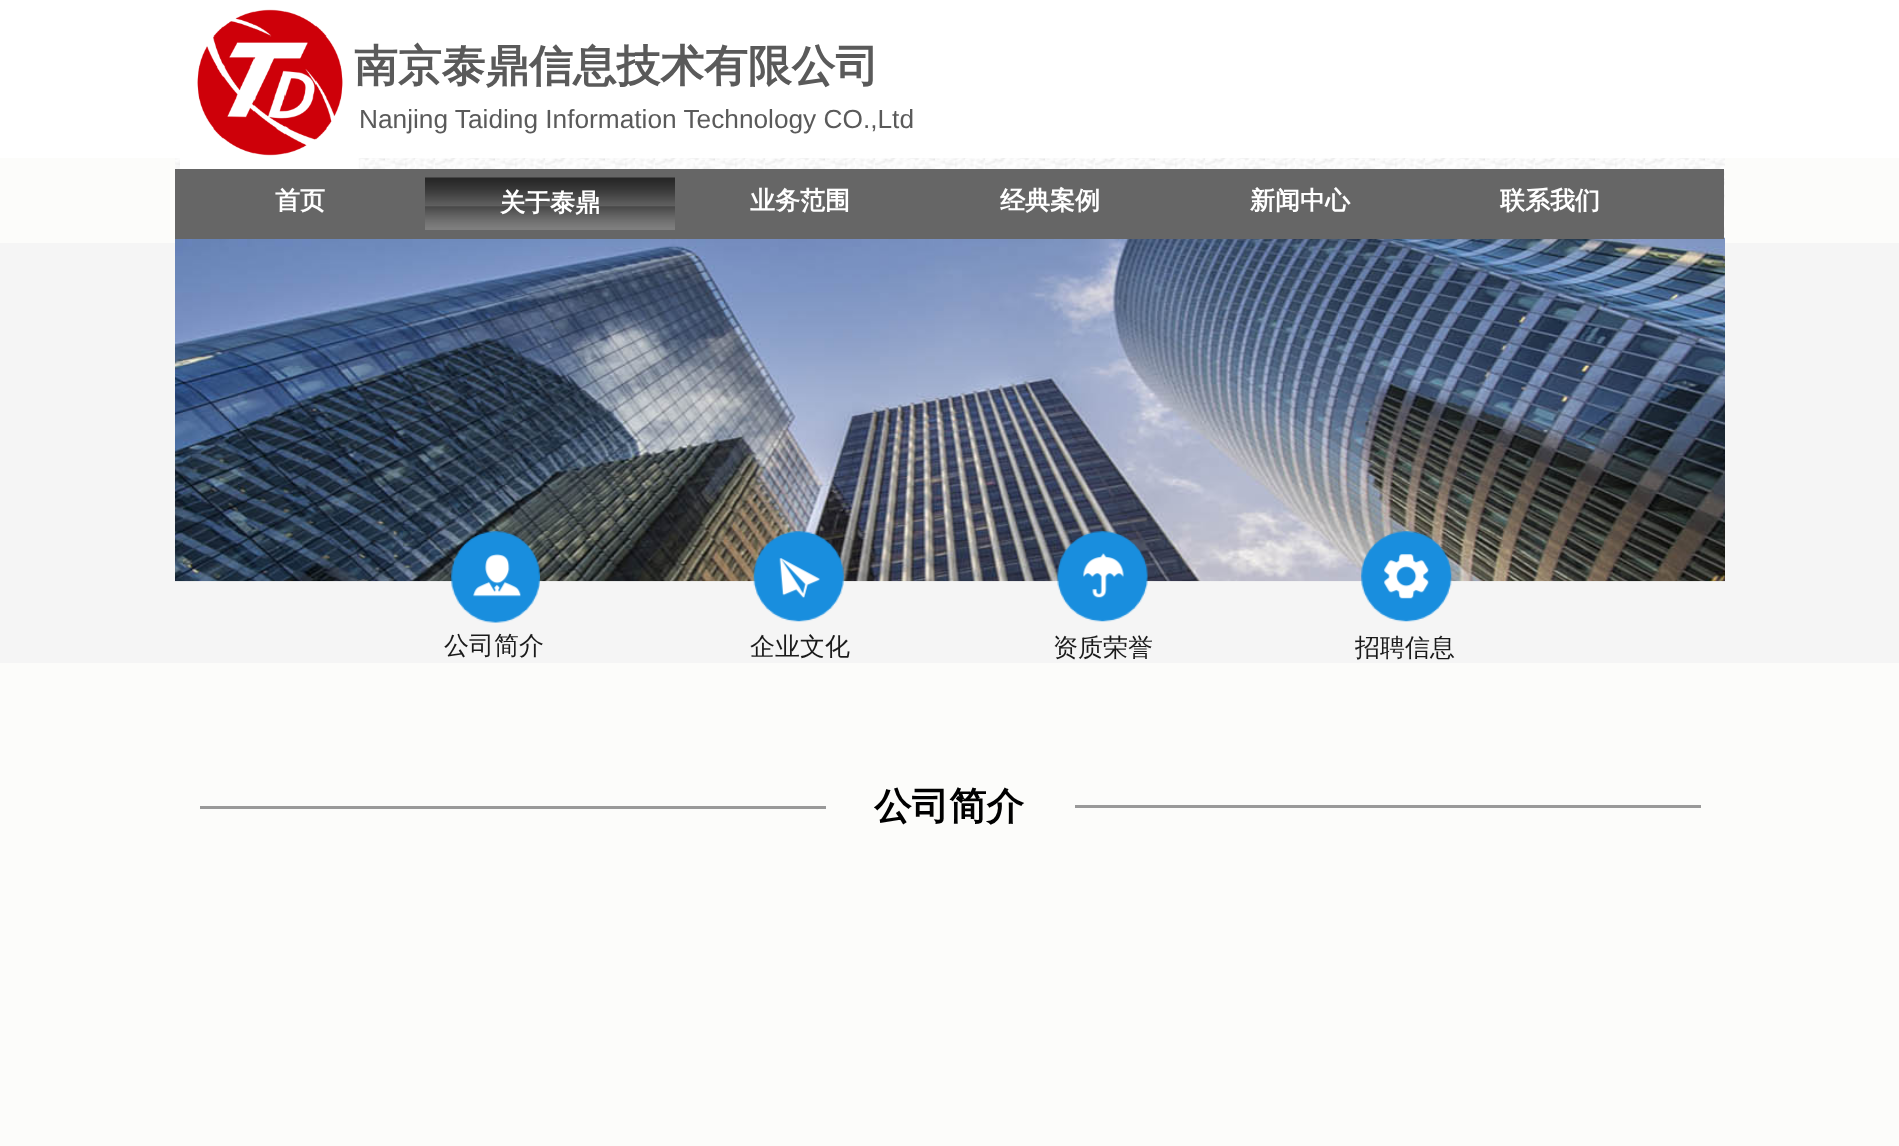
<svg xmlns="http://www.w3.org/2000/svg" width="1899" height="1146" viewBox="0 0 1899 1146">
  <style>
    .t1 { font: bold 43.75px WenQuanYi Zen Hei; fill: #5a5a5a; }
    .t2 { font: 26.25px Liberation Sans; fill: #5a5a5a; }
    .t3 { font: bold 25px WenQuanYi Zen Hei; fill: #fff; }
    .t4 { font: 500 25px WenQuanYi Zen Hei; fill: #1a1a1a; }
    .t5 { font: bold 37.5px WenQuanYi Zen Hei; fill: #000; }
  </style>
  <rect width="100%" height="100%" fill="#fcfcfa"/>
  <image x="175" y="158" width="1550" height="80" href="images/1.png"/>
  <rect x="0" y="0" width="1899" height="158" fill="#fff"/>
  <image x="180" y="9" width="179" height="160" href="images/2.png"/>
  <text x="354" y="81" class="t1">南京泰鼎信息技术有限公司</text>
  <text x="359" y="128" class="t2">Nanjing Taiding Information Technology CO.,Ltd</text>
  <rect x="0" y="243" width="1899" height="420" fill="#f5f5f5"/>
  <image x="175" y="237" width="1550" height="345" href="images/4.png"/>
  <rect x="175" y="169" width="1549" height="70" fill="#666"/>
  <text x="275" y="209" class="t3">首页</text>
  <image x="425" y="177" width="250" height="53" href="images/3.png"/>
  <text x="500" y="211" class="t3">关于泰鼎</text>
  <text x="750" y="209" class="t3">业务范围</text>
  <text x="1000" y="209" class="t3">经典案例</text>
  <text x="1250" y="209" class="t3">新闻中心</text>
  <text x="1500" y="209" class="t3">联系我们</text>
  <image x="451" y="531" width="89" height="92" href="images/5.png"/>
  <image x="753" y="531" width="91" height="91" href="images/6.png"/>
  <image x="1057" y="531" width="91" height="91" href="images/7.png"/>
  <image x="1361" y="531" width="91" height="91" href="images/8.png"/>
  <image x="473" y="554" width="48" height="43" href="images/9.png"/>
  <image x="779" y="558" width="41" height="40" href="images/10.png"/>
  <image x="1083" y="553" width="41" height="45" href="images/11.png"/>
  <image x="1384" y="554" width="45" height="45" href="images/12.png"/>
  <text x="444" y="654" class="t4">公司简介</text>
  <text x="750" y="655" class="t4">企业文化</text>
  <text x="1053" y="656" class="t4">资质荣誉</text>
  <text x="1355" y="656" class="t4">招聘信息</text>
  <rect x="200" y="806" width="626" height="3" fill="#999"/>
  <text x="874" y="819" class="t5">公司简介</text>
  <rect x="1075" y="805" width="626" height="3" fill="#999"/>
</svg>
